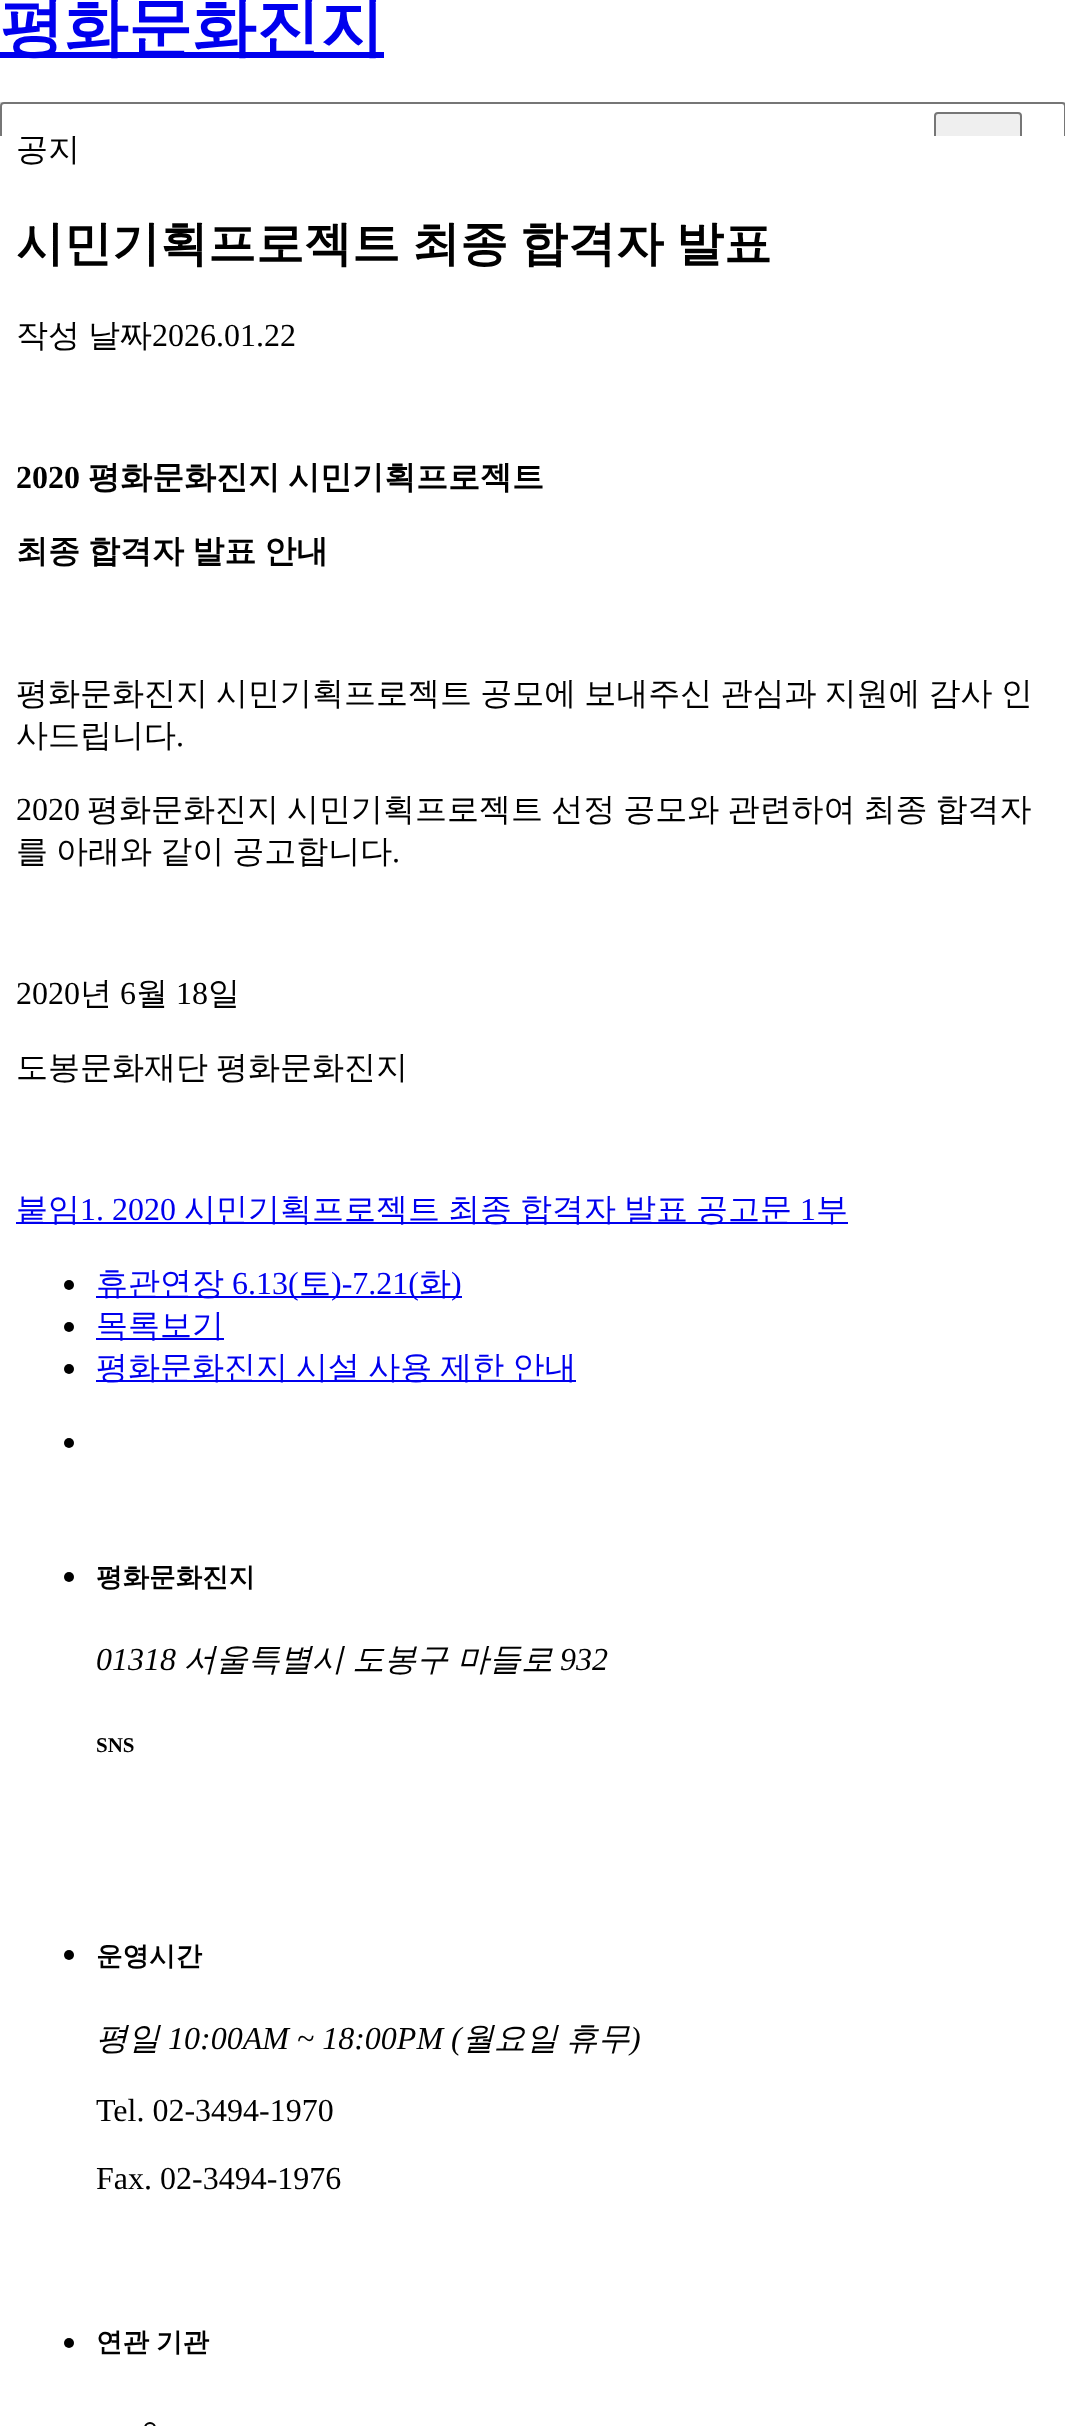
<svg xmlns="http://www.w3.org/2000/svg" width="1065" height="2426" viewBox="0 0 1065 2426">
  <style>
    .t1 { font: bold 64px WenQuanYi Zen Hei; fill: #00e; }
    .t2 { font: 500 32px WenQuanYi Zen Hei; fill: #000; }
    .t3 { font: bold 48px WenQuanYi Zen Hei; fill: #000; }
    .t4 { font: 32px Liberation Serif; fill: #000; }
    .t5 { font: bold 32px Liberation Serif; fill: #000; }
    .t6 { font: bold 32px WenQuanYi Zen Hei; fill: #000; }
    .t7 { font: 500 32px WenQuanYi Zen Hei; fill: #00e; }
    .t8 { font: 32px Liberation Serif; fill: #00e; }
    .t9 { font: bold 26.5px WenQuanYi Zen Hei; fill: #000; }
    .t10 { font: italic 32px Liberation Serif; fill: #000; }
    .t11 { font: italic 500 32px WenQuanYi Zen Hei; fill: #000; }
    .t12 { font: bold 21px Liberation Serif; fill: #000; }
  </style>
  <defs>
    <clipPath id="clip1"><rect x="0" y="0" width="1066" height="136"/></clipPath>
  </defs>
  <rect width="100%" height="100%" fill="#fff"/>
  <rect x="0" y="52" width="384" height="6" fill="#00e"/>
  <text x="0" y="49" class="t1">평화문화진지</text>
  <rect x="0" y="102" width="1065" height="4" fill="#ddd"/>
  <path d="M4 102H1062C1064 102 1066 104 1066 106V136H0V106C0 104 2 102 4 102Z" fill="#fff"/>
  <g clip-path="url(#clip1)">
    <rect x="1" y="103" width="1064" height="118" rx="3" fill="none" stroke="#767676" stroke-width="2"/>
  </g>
  <path d="M938 112H1018C1020 112 1022 114 1022 116V136H934V116C934 114 936 112 938 112Z" fill="#efefef"/>
  <g clip-path="url(#clip1)">
    <rect x="935" y="113" width="86" height="110" rx="3" fill="none" stroke="#767676" stroke-width="2"/>
  </g>
  <text x="16" y="160" class="t2">공지</text>
  <text x="16" y="260" word-spacing="-2.5" class="t3">시민기획프로젝트 최종 합격자 발표</text>
  <text x="16" y="346" word-spacing="-1.5" class="t2">작성 날짜</text>
  <text x="152" y="346" class="t4">2026.01.22</text>
  <text x="16" y="488" class="t5">2020</text>
  <text x="88" y="488" word-spacing="-1.5" class="t6">평화문화진지 시민기획프로젝트</text>
  <text x="16" y="562" word-spacing="-1.5" class="t6">최종 합격자 발표 안내</text>
  <text x="16" y="704" word-spacing="-1.5" class="t2">평화문화진지 시민기획프로젝트 공모에 보내주신 관심과 지원에 감사 인</text>
  <text x="16" y="746" class="t2">사드립니다</text>
  <text x="176" y="746" class="t4">.</text>
  <text x="16" y="820" class="t4">2020</text>
  <text x="87" y="820" word-spacing="-1.5" class="t2">평화문화진지 시민기획프로젝트 선정 공모와 관련하여 최종 합격자</text>
  <text x="16" y="862" word-spacing="-1.5" class="t2">를 아래와 같이 공고합니다</text>
  <text x="392" y="862" class="t4">.</text>
  <text x="16" y="1004" class="t4">2020</text>
  <text x="80" y="1004" class="t2">년</text>
  <text x="120" y="1004" class="t4">6</text>
  <text x="136" y="1004" class="t2">월</text>
  <text x="176" y="1004" class="t4">18</text>
  <text x="208" y="1004" class="t2">일</text>
  <text x="16" y="1078" word-spacing="-1.5" class="t2">도봉문화재단 평화문화진지</text>
  <rect x="16" y="1222" width="832" height="2" fill="#00e"/>
  <text x="16" y="1220" class="t7">붙임</text>
  <text x="80" y="1220" class="t8">1. 2020</text>
  <text x="184" y="1220" class="t7">시민기획프로젝트</text>
  <text x="448" y="1220" class="t7">최종</text>
  <text x="520" y="1220" class="t7">합격자</text>
  <text x="624" y="1220" class="t7">발표</text>
  <text x="696" y="1220" class="t7">공고문</text>
  <text x="800" y="1220" class="t8">1</text>
  <text x="816" y="1220" class="t7">부</text>
  <circle cx="69" cy="1285" r="5" fill="#000"/>
  <rect x="96" y="1296" width="366" height="2" fill="#00e"/>
  <text x="96" y="1294" class="t7">휴관연장</text>
  <text x="232" y="1294" class="t8">6.13(</text>
  <text x="299" y="1294" class="t7">토</text>
  <text x="331" y="1294" class="t8">)-7.21(</text>
  <text x="419" y="1294" class="t7">화</text>
  <text x="451" y="1294" class="t8">)</text>
  <circle cx="69" cy="1327" r="5" fill="#000"/>
  <rect x="96" y="1338" width="128" height="2" fill="#00e"/>
  <text x="96" y="1336" class="t7">목록보기</text>
  <circle cx="69" cy="1369" r="5" fill="#000"/>
  <rect x="96" y="1380" width="480" height="2" fill="#00e"/>
  <text x="96" y="1378" word-spacing="-1.5" class="t7">평화문화진지 시설 사용 제한 안내</text>
  <circle cx="69" cy="1443" r="5" fill="#000"/>
  <circle cx="69" cy="1577" r="5" fill="#000"/>
  <text x="96" y="1586" class="t9">평화문화진지</text>
  <text x="96" y="1670" class="t10">01318</text>
  <text x="184" y="1670" word-spacing="-1" class="t11">서울특별시 도봉구 마들로</text>
  <text x="560" y="1670" class="t10">932</text>
  <text x="96" y="1752" class="t12">SNS</text>
  <circle cx="69" cy="1955" r="5" fill="#000"/>
  <text x="96" y="1965" class="t9">운영시간</text>
  <text x="96" y="2049" class="t11">평일</text>
  <text x="168" y="2049" class="t10">10:00AM ~ 18:00PM (</text>
  <text x="462" y="2049" word-spacing="-1.5" class="t11">월요일 휴무</text>
  <text x="630" y="2049" class="t10">)</text>
  <text x="96" y="2121" class="t4">Tel. 02-3494-1970</text>
  <text x="96" y="2189" class="t4">Fax. 02-3494-1976</text>
  <circle cx="69" cy="2343" r="5" fill="#000"/>
  <text x="96" y="2351" word-spacing="-1" class="t9">연관 기관</text>
  <circle cx="150" cy="2428" r="5" fill="none" stroke="#000" stroke-width="2"/>
</svg>
